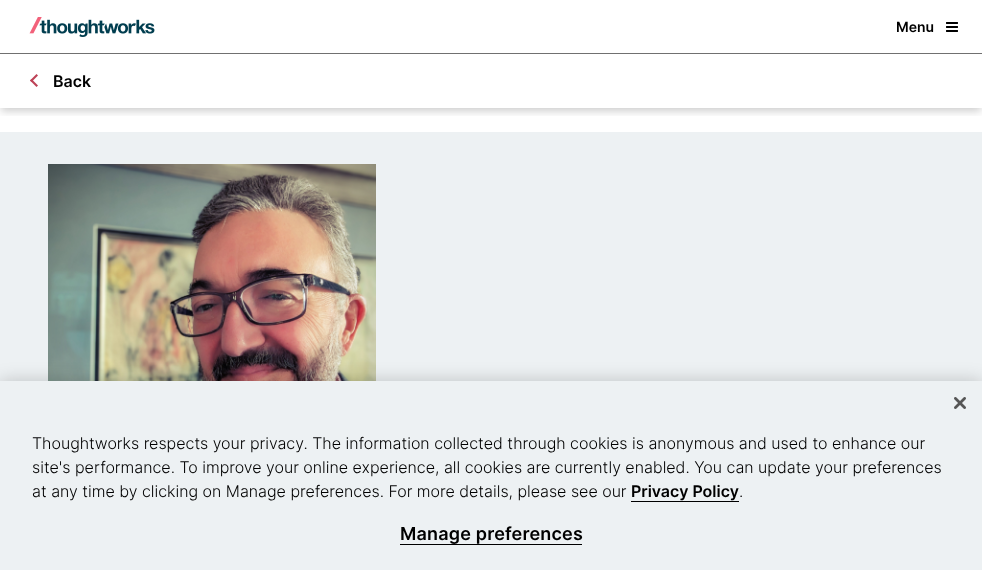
<svg xmlns="http://www.w3.org/2000/svg" width="982" height="570" viewBox="0 0 982 570">
  <style>
    .t1 { font: 600 14px Inter; fill: #000; }
    .t2 { font: 600 16px Inter; fill: #000; }
    .t3 { font: 300 16px Inter; fill: #000; }
    .t4 { font: 600 18px Inter; letter-spacing: 0.2px; fill: #000; }
  </style>
  <defs>
    <clipPath id="clip1"><rect x="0" y="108" width="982" height="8"/></clipPath>
  </defs>
  <rect width="100%" height="100%" fill="#fff"/>
  <g clip-path="url(#clip1)">
    <rect x="1" y="59" width="980" height="52" fill="#00000033" filter="blur(4px)"/>
  </g>
  <rect x="9" y="52" width="964" height="1" fill="#fff"/>
  <rect x="0" y="53" width="982" height="1" fill="#707070"/>
  <image x="29" y="17" width="126" height="20" href="images/1.png"/>
  <text x="896" y="32" class="t1">Menu</text>
  <image x="946" y="22" width="12" height="10" href="images/2.png"/>
  <path d="M36.5 87L30 80.5L31.5 79L38 85.5Z" fill="#bd4257"/>
  <path d="M31.5 82L30 80.5L36.5 74L38 75.5Z" fill="#bd4257"/>
  <text x="53" y="87" class="t2">Back</text>
  <rect x="0" y="132" width="982" height="249" fill="#edf1f3"/>
  <image x="48" y="164" width="328" height="217" href="images/3.png"/>
  <rect x="0" y="381" width="982" height="189" fill="#00000033" filter="blur(9px)"/>
  <rect x="0" y="381" width="982" height="189" fill="#edf1f3"/>
  <image x="954" y="397" width="12" height="12" href="images/4.png"/>
  <text x="32" y="449" class="t3">Thoughtworks respects your privacy. The information collected through cookies is anonymous and used to enhance our</text>
  <text x="32" y="473" class="t3">site's performance. To improve your online experience, all cookies are currently enabled. You can update your preferences</text>
  <text x="32" y="497" class="t3">at any time by clicking on Manage preferences. For more details, please see our</text>
  <text x="631" y="497" class="t2">Privacy Policy</text>
  <rect x="631" y="501" width="108" height="1" fill="#000"/>
  <text x="739" y="497" class="t3">.</text>
  <text x="400" y="540" class="t4">Manage preferences</text>
  <rect x="400" y="544" width="182" height="1" fill="#000"/>
</svg>
